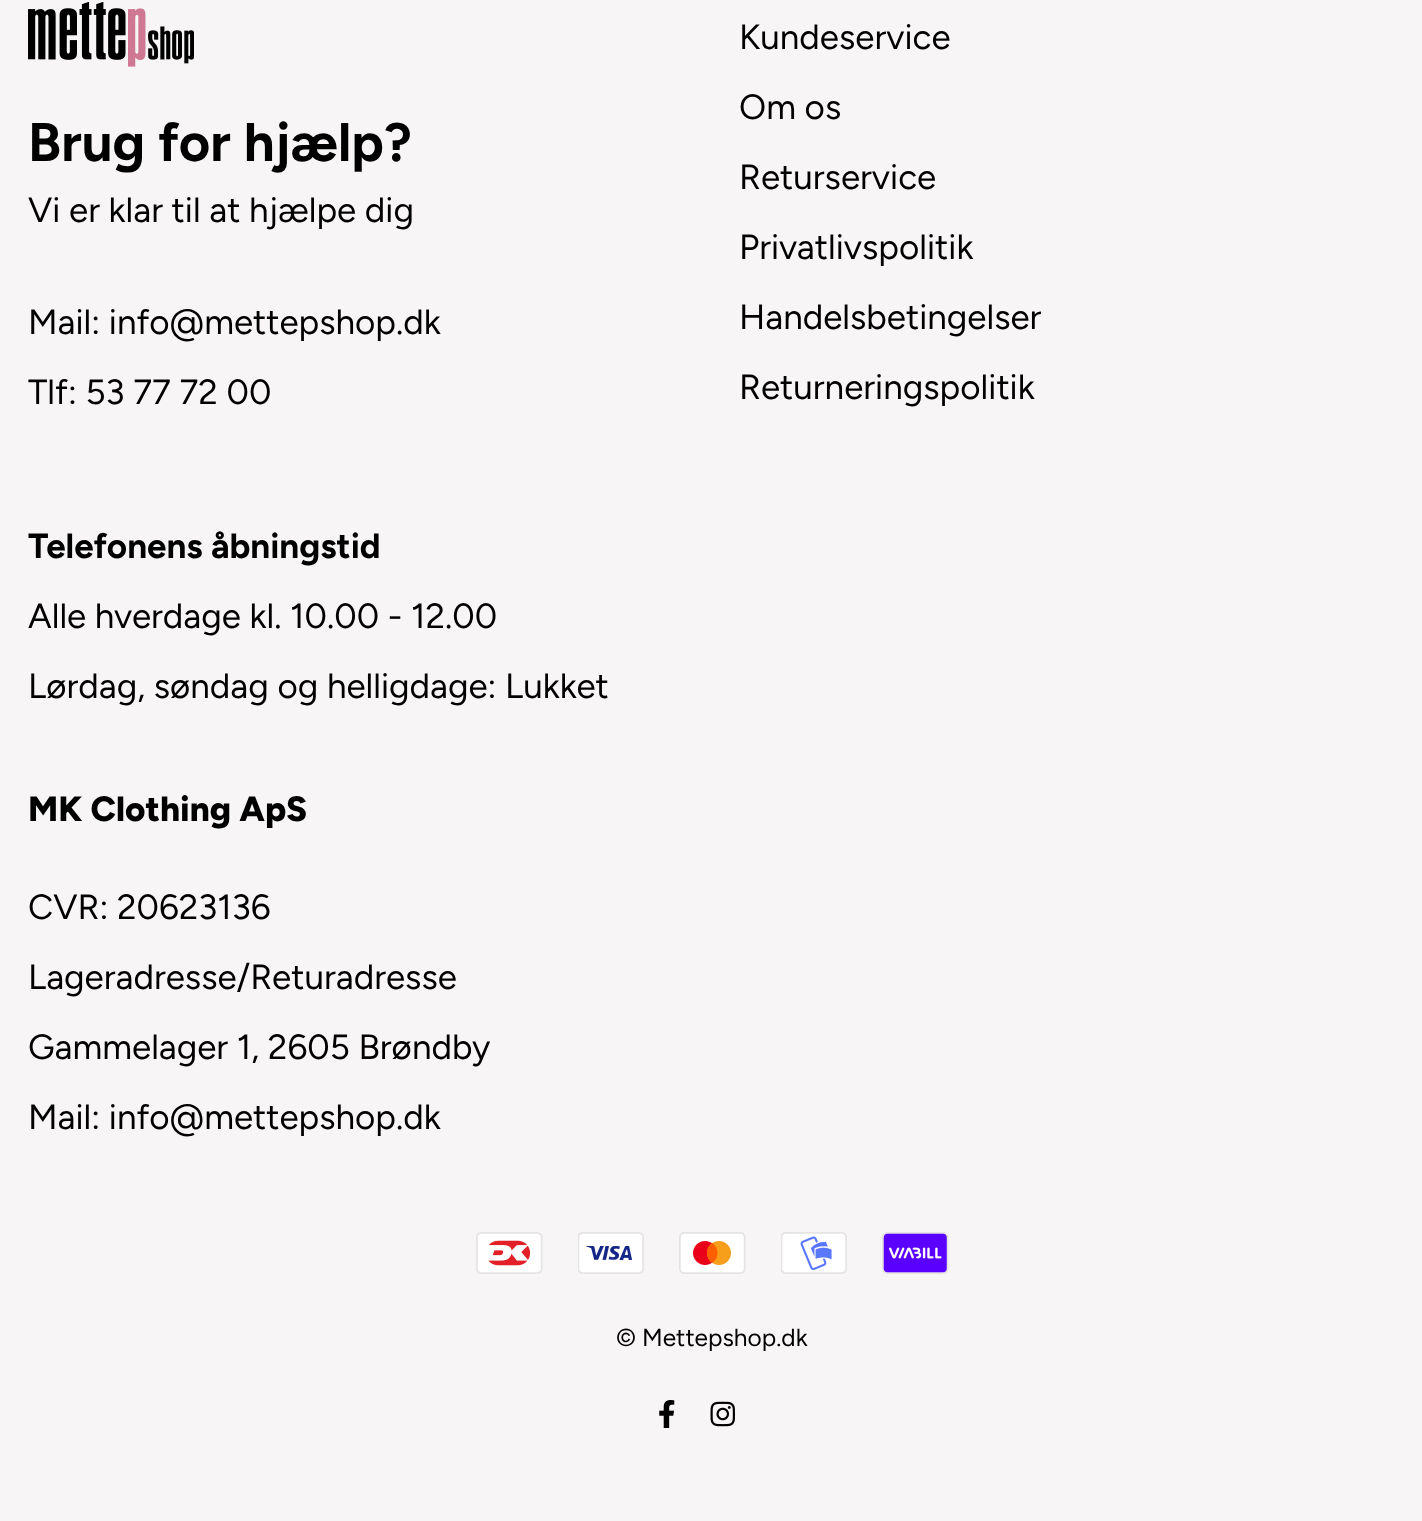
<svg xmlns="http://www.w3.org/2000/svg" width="1422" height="1521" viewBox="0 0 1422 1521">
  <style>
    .t1 { font: bold 54.25px Figtree; fill: #000; }
    .t2 { font: 35px Figtree; fill: #000; }
    .t3 { font: bold 35px Figtree; fill: #000; }
    .t4 { font: 800 35px Figtree; fill: #000; }
    .t5 { font: 24.5px Figtree; fill: #000; }
  </style>
  <rect width="100%" height="100%" fill="#f7f5f5"/>
  <image x="28" y="2" width="166" height="65" href="images/1.png"/>
  <text x="28" y="161" class="t1">Brug for hjælp?</text>
  <text x="28" y="222" class="t2">Vi er klar til at hjælpe dig</text>
  <text x="28" y="334" class="t2">Mail: info@mettepshop.dk</text>
  <text x="28" y="404" class="t2">Tlf: 53 77 72 00</text>
  <text x="28" y="558" class="t3">Telefonens åbningstid</text>
  <text x="28" y="628" class="t2">Alle hverdage kl. 10.00 - 12.00</text>
  <text x="28" y="698" class="t2">Lørdag, søndag og helligdage: Lukket</text>
  <text x="739" y="49" class="t2">Kundeservice</text>
  <text x="739" y="119" class="t2">Om os</text>
  <text x="739" y="189" class="t2">Returservice</text>
  <text x="739" y="259" class="t2">Privatlivspolitik</text>
  <text x="739" y="329" class="t2">Handelsbetingelser</text>
  <text x="739" y="399" class="t2">Returneringspolitik</text>
  <text x="28" y="821" class="t4">MK Clothing ApS</text>
  <text x="28" y="919" class="t2">CVR: 20623136</text>
  <text x="28" y="989" class="t2">Lageradresse/Returadresse</text>
  <text x="28" y="1059" class="t2">Gammelager 1, 2605 Brøndby</text>
  <text x="28" y="1129" class="t2">Mail: info@mettepshop.dk</text>
  <image x="476" y="1232" width="67" height="42" href="images/2.png"/>
  <image x="578" y="1232" width="66" height="42" href="images/3.png"/>
  <image x="679" y="1232" width="67" height="42" href="images/4.png"/>
  <image x="781" y="1232" width="66" height="42" href="images/5.png"/>
  <image x="882" y="1232" width="67" height="42" href="images/6.png"/>
  <text x="616" y="1346" class="t5">© Mettepshop.dk</text>
  <image x="659" y="1400" width="16" height="28" href="images/7.png"/>
  <image x="710" y="1401" width="25" height="26" href="images/8.png"/>
</svg>
